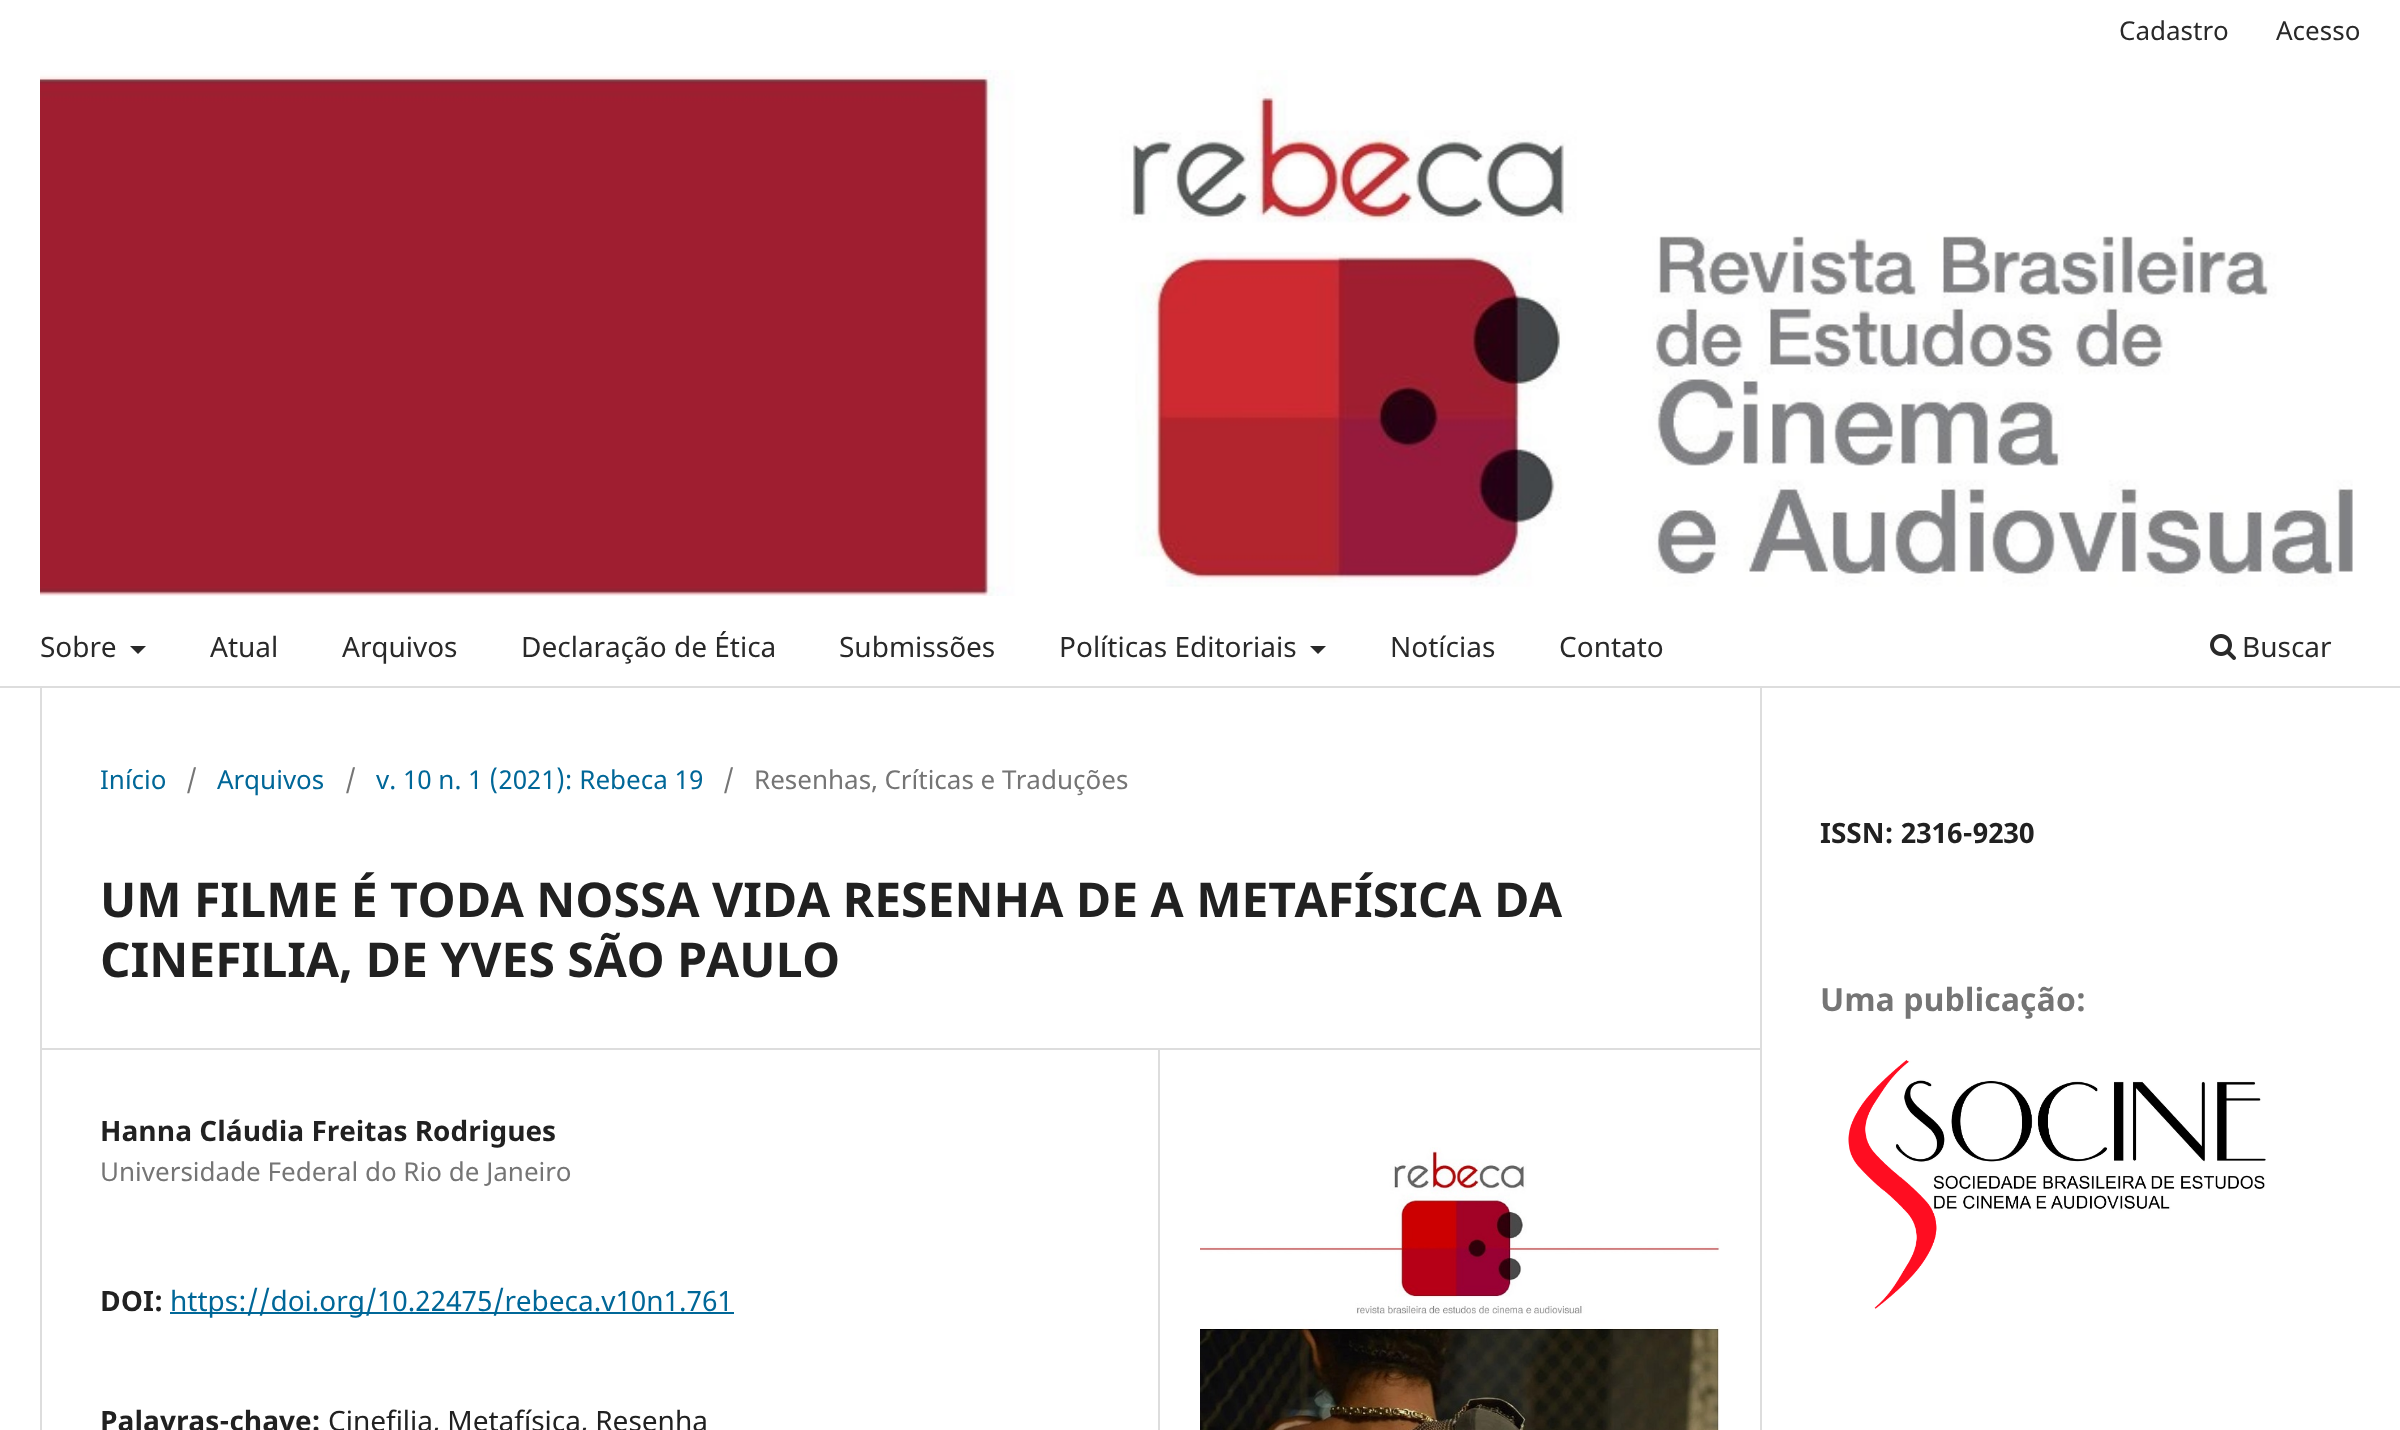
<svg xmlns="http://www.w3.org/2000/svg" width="2400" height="1430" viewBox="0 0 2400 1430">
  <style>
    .t1 { font: 26px Noto Sans; fill: #292929; }
    .t2 { font: 28px Noto Sans; fill: #292929; }
    .t3 { font: 26px Noto Sans; fill: #006798; }
    .t4 { font: 26px Noto Sans; fill: #757575; }
    .t5 { font: bold 48px Noto Sans; fill: #212121; }
    .t6 { font: bold 28px Noto Sans; fill: #212121; }
    .t7 { font: 28px Noto Sans; fill: #006798; }
    .t8 { font: 28px Noto Sans; fill: #212121; }
    .t9 { font: bold 32px Noto Sans; fill: #757575; }
  </style>
  <rect width="100%" height="100%" fill="#fff"/>
  <rect x="0" y="686" width="2400" height="2" fill="#ddd"/>
  <text x="2119" y="40" class="t1">Cadastro</text>
  <text x="2276" y="40" class="t1">Acesso</text>
  <text x="40" y="657" class="t2">Sobre</text>
  <path d="M130 646H146L138 654Z" fill="#292929"/>
  <text x="210" y="657" class="t2">Atual</text>
  <text x="342" y="657" class="t2">Arquivos</text>
  <text x="521" y="657" class="t2">Declaração de Ética</text>
  <text x="839" y="657" class="t2">Submissões</text>
  <text x="1059" y="657" class="t2">Políticas Editoriais</text>
  <path d="M1310 646H1326L1318 654Z" fill="#292929"/>
  <text x="1390" y="657" class="t2">Notícias</text>
  <text x="1559" y="657" class="t2">Contato</text>
  <image x="2210" y="634" width="26" height="26" href="images/1.png"/>
  <text x="2242" y="657" class="t2">Buscar</text>
  <image x="40" y="70" width="2313" height="526" href="images/2.png"/>
  <rect x="40" y="1048" width="1720" height="2" fill="#ddd"/>
  <rect x="40" y="688" width="2" height="742" fill="#ddd"/>
  <text x="100" y="789" class="t3">Início</text>
  <text x="186" y="789" class="t4">/</text>
  <text x="217" y="789" class="t3">Arquivos</text>
  <text x="345" y="789" class="t4">/</text>
  <text x="376" y="789" class="t3">v. 10 n. 1 (2021): Rebeca 19</text>
  <text x="723" y="789" class="t4">/</text>
  <text x="754" y="789" class="t4">Resenhas, Críticas e Traduções</text>
  <text x="100" y="917" class="t5">UM FILME É TODA NOSSA VIDA RESENHA DE A METAFÍSICA DA</text>
  <text x="100" y="977" class="t5">CINEFILIA, DE YVES SÃO PAULO</text>
  <rect x="1158" y="1050" width="2" height="380" fill="#ddd"/>
  <text x="100" y="1141" class="t6">Hanna Cláudia Freitas Rodrigues</text>
  <text x="100" y="1181" class="t4">Universidade Federal do Rio de Janeiro</text>
  <text x="100" y="1311" class="t6">DOI:</text>
  <rect x="170" y="1312" width="564" height="2" fill="#006798"/>
  <text x="170" y="1311" class="t7">https://doi.org/10.22475/rebeca.v10n1.761</text>
  <text x="100" y="1431" class="t6">Palavras-chave:</text>
  <text x="328" y="1431" class="t8">Cinefilia, Metafísica, Resenha</text>
  <image x="1200" y="1147" width="520" height="283" href="images/3.png"/>
  <rect x="1760" y="688" width="2" height="742" fill="#ddd"/>
  <text x="1820" y="843" class="t6">ISSN: 2316-9230</text>
  <text x="1820" y="1011" class="t9">Uma publicação:</text>
  <image x="1848" y="1060" width="418" height="249" href="images/4.png"/>
</svg>
